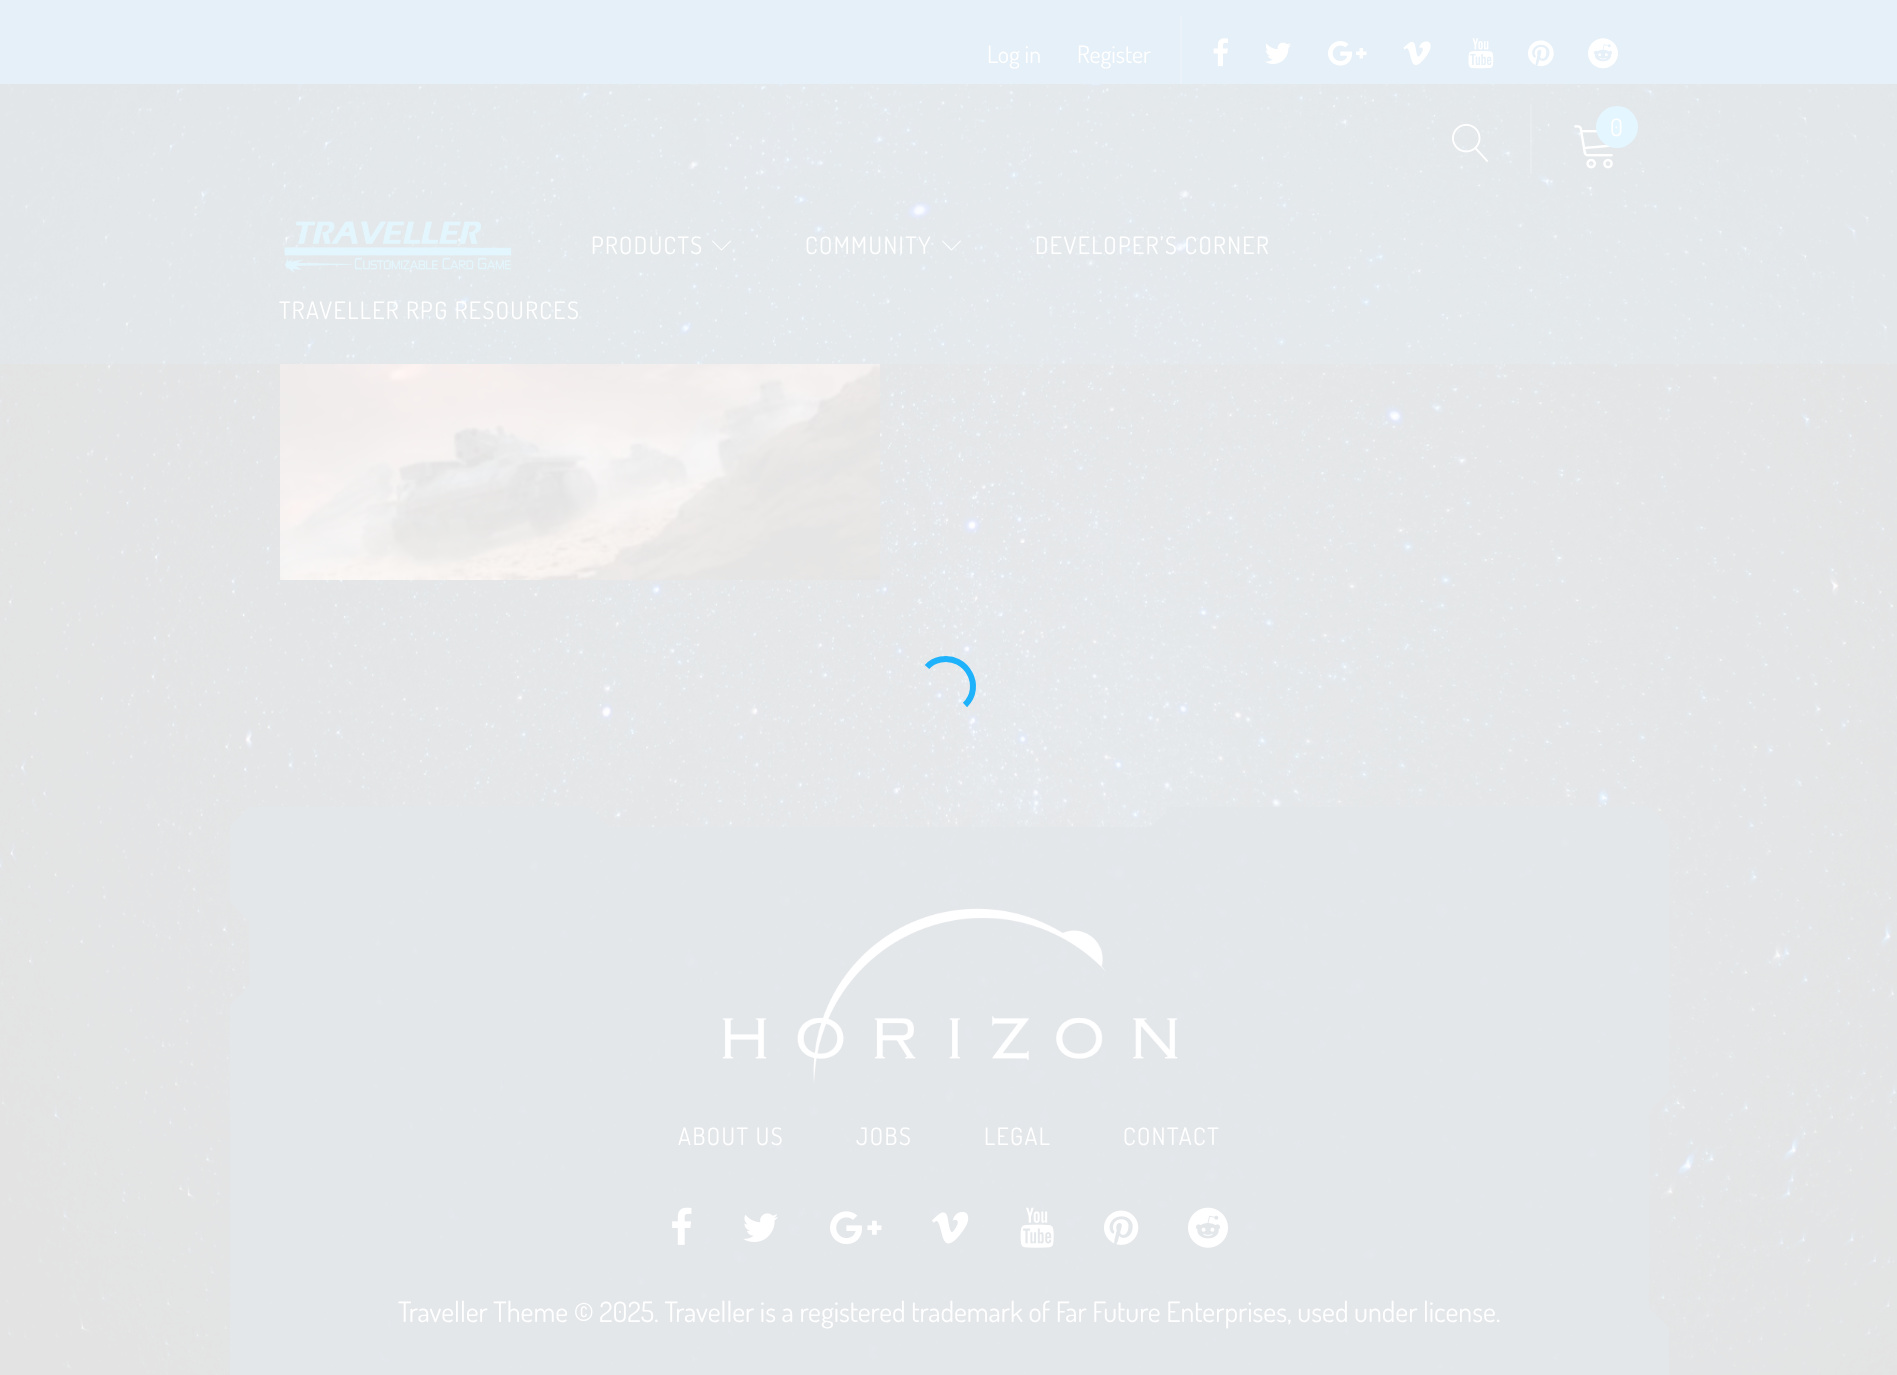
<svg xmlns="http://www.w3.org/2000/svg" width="1897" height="1375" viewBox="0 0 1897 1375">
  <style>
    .t1 { font: 24px Dosis; fill: #fff; }
    .t2 { font: 24px Dosis; letter-spacing: 1.4px; fill: #fff; }
    .t3 { font: 24px Dosis; letter-spacing: 1.5px; fill: #fff; }
    .t4 { font: 28px Dosis; fill: #fff; }
  </style>
  <rect width="100%" height="100%" fill="#fff"/>
  <image x="0" y="84" width="1897" height="1291" href="images/1.png"/>
  <rect x="0" y="0" width="1897" height="84" fill="#e6f0f8"/>
  <rect x="1180" y="16" width="2" height="68" fill="#ebf2f9"/>
  <text x="987" y="63" class="t1">Log in</text>
  <text x="1077" y="63" class="t1">Register</text>
  <image x="1213" y="38" width="16" height="29" href="images/2.png"/>
  <image x="1265" y="42" width="26" height="22" href="images/3.png"/>
  <image x="1328" y="41" width="39" height="25" href="images/4.png"/>
  <image x="1403" y="41" width="28" height="25" href="images/5.png"/>
  <image x="1468" y="38" width="26" height="31" href="images/6.png"/>
  <image x="1528" y="40" width="26" height="27" href="images/7.png"/>
  <image x="1588" y="38" width="30" height="31" href="images/8.png"/>
  <rect x="0" y="84" width="1897" height="280" fill="#e4f6ff33"/>
  <image x="1452" y="123" width="36" height="39" href="images/9.png"/>
  <rect x="1530" y="104" width="2" height="70" fill="#fdfdfd33"/>
  <image x="1574" y="125" width="39" height="44" href="images/10.png"/>
  <circle cx="1617" cy="127" r="21" fill="#e4f6ff"/>
  <text x="1610" y="136" class="t1">0</text>
  <image x="284" y="221" width="228" height="52" href="images/11.png"/>
  <text x="591" y="254" class="t2">PRODUCTS</text>
  <image x="712" y="240" width="19" height="11" href="images/12.png"/>
  <text x="805" y="254" class="t2">COMMUNITY</text>
  <image x="942" y="240" width="19" height="11" href="images/13.png"/>
  <text x="1035" y="254" class="t2">DEVELOPER’S CORNER</text>
  <text x="279" y="319" class="t2">TRAVELLER RPG RESOURCES</text>
  <image x="280" y="364" width="600" height="216" href="images/14.png"/>
  <path d="M230 902V826L249 807H589L609 827H1151L1171 807H1649L1669 827V1091L1649 1111V1308L1669 1328V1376H230V1005L249 986V921Z" fill="#e3e7eae6"/>
  <image x="722" y="908" width="456" height="176" href="images/15.png"/>
  <text x="678" y="1145" class="t3">ABOUT US</text>
  <text x="856" y="1145" class="t3">JOBS</text>
  <text x="984" y="1145" class="t3">LEGAL</text>
  <text x="1123" y="1145" class="t3">CONTACT</text>
  <image x="672" y="1207" width="20" height="38" href="images/16.png"/>
  <image x="743" y="1213" width="35" height="29" href="images/17.png"/>
  <image x="830" y="1211" width="52" height="34" href="images/18.png"/>
  <image x="931" y="1212" width="38" height="32" href="images/19.png"/>
  <image x="1020" y="1207" width="34" height="41" href="images/20.png"/>
  <image x="1104" y="1210" width="35" height="35" href="images/21.png"/>
  <image x="1188" y="1207" width="40" height="41" href="images/22.png"/>
  <text x="398" y="1322" class="t4">Traveller Theme © 2025. Traveller is a registered trademark of Far Future Enterprises, used under license.</text>
  <path d="M927 667C930.5 663 935.5 660.5 940.5 659.5C966.5 654.5 984 686.5 965 705" fill="none" stroke="#05abfde3" stroke-width="6"/>
</svg>
